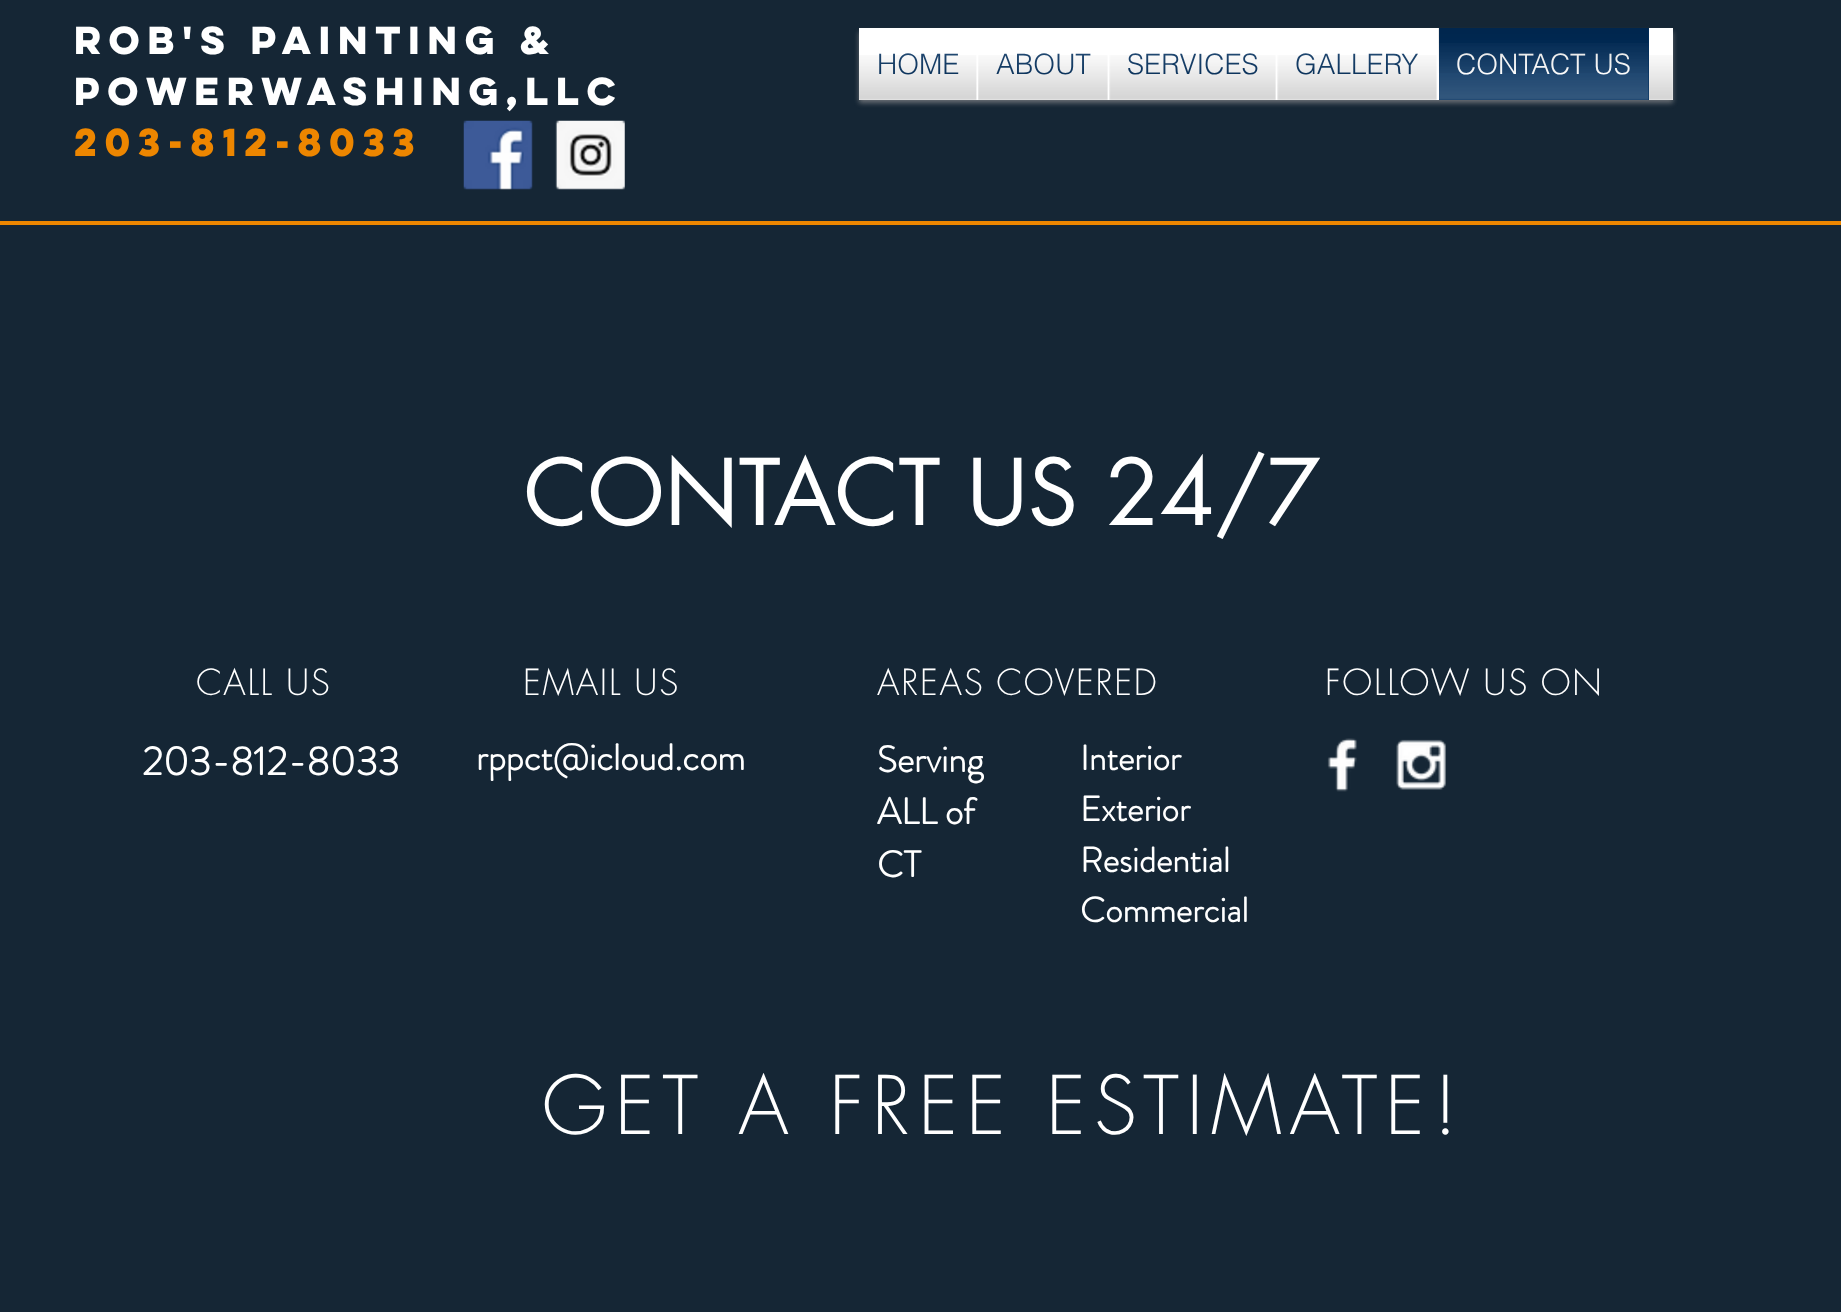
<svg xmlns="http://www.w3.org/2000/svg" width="1841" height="1312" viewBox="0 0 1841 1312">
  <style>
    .t1 { font: bold 35px 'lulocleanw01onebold'; fill: #fff; }
    .t2 { font: bold 35px 'lulocleanw01onebold'; fill: #ed8600; }
    .t3 { font: 300 28px helvetica; fill: #002e5d; }
    .t4 { font: 300 28px helvetica; fill: #fff; }
    .t5 { font: 89.25px futura; fill: #fff; }
    .t6 { font: 300 35px futura; letter-spacing: 1.75px; fill: #fff; }
    .t7 { font: bold 40.25px 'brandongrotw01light'; fill: #fff; }
    .t8 { font: bold 36.75px 'brandongrotw01light'; fill: #fff; }
    .t9 { font: bold 35px 'brandongrotw01light'; fill: #fff; }
    .t10 { font: 300 78.75px futura; letter-spacing: 7.9px; fill: #fff; }
  </style>
  <rect width="100%" height="100%" fill="#152635"/>
  <text x="74" y="54" class="t1">Rob's Painting &amp;</text>
  <text x="74" y="105" class="t1">Powerwashing,LLC</text>
  <text x="74" y="156" class="t2">203-812-8033</text>
  <rect x="859" y="32" width="814" height="71" fill="#a29e9e99" filter="blur(2.5px)"/>
  <rect x="1649" y="28" width="24" height="72" fill="#fff"/>
  <image x="1649" y="55" width="24" height="45" href="images/1.png"/>
  <rect x="859" y="28" width="580" height="72" fill="#fff"/>
  <text x="877" y="74" class="t3">HOME</text>
  <image x="879" y="53" width="79" height="22" href="images/2.png"/>
  <image x="859" y="55" width="118" height="45" href="images/3.png"/>
  <text x="996" y="74" class="t3">ABOUT</text>
  <image x="996" y="53" width="95" height="22" href="images/4.png"/>
  <image x="978" y="55" width="130" height="45" href="images/5.png"/>
  <text x="1127" y="74" class="t3">SERVICES</text>
  <image x="1128" y="53" width="130" height="22" href="images/6.png"/>
  <image x="1109" y="55" width="167" height="45" href="images/7.png"/>
  <text x="1295" y="74" class="t3">GALLERY</text>
  <image x="1296" y="53" width="122" height="22" href="images/8.png"/>
  <image x="1277" y="55" width="160" height="45" href="images/9.png"/>
  <rect x="1439" y="28" width="210" height="72" fill="#002e5d"/>
  <text x="1456" y="74" class="t4">CONTACT US</text>
  <image x="1438" y="28" width="211" height="45" href="images/10.png"/>
  <image x="1439" y="43" width="210" height="57" href="images/11.png"/>
  <image x="463" y="120" width="70" height="70" href="images/12.png"/>
  <image x="555" y="120" width="70" height="70" href="images/13.png"/>
  <rect x="0" y="221" width="1841" height="4" fill="#ed8600"/>
  <text x="524" y="525" class="t5">CONTACT US 24/7</text>
  <text x="196" y="695" class="t6">CALL US</text>
  <text x="523" y="695" class="t6">EMAIL US</text>
  <text x="877" y="695" class="t6">AREAS COVERED</text>
  <text x="1325" y="695" class="t6">FOLLOW US ON</text>
  <text x="142" y="775" class="t7">203-812-8033</text>
  <text x="476" y="770" class="t8">rppct@icloud.com</text>
  <text x="877" y="772" class="t8">Serving</text>
  <text x="877" y="824" class="t8">ALL of</text>
  <text x="877" y="877" class="t8">CT</text>
  <text x="1080" y="770" class="t9">Interior</text>
  <text x="1080" y="821" class="t9">Exterior</text>
  <text x="1080" y="872" class="t9">Residential</text>
  <text x="1080" y="922" class="t9">Commercial</text>
  <image x="1327" y="738" width="30" height="54" href="images/14.png"/>
  <image x="1396" y="739" width="50" height="51" href="images/15.png"/>
  <text x="542" y="1134" class="t10">GET A FREE ESTIMATE!</text>
</svg>
